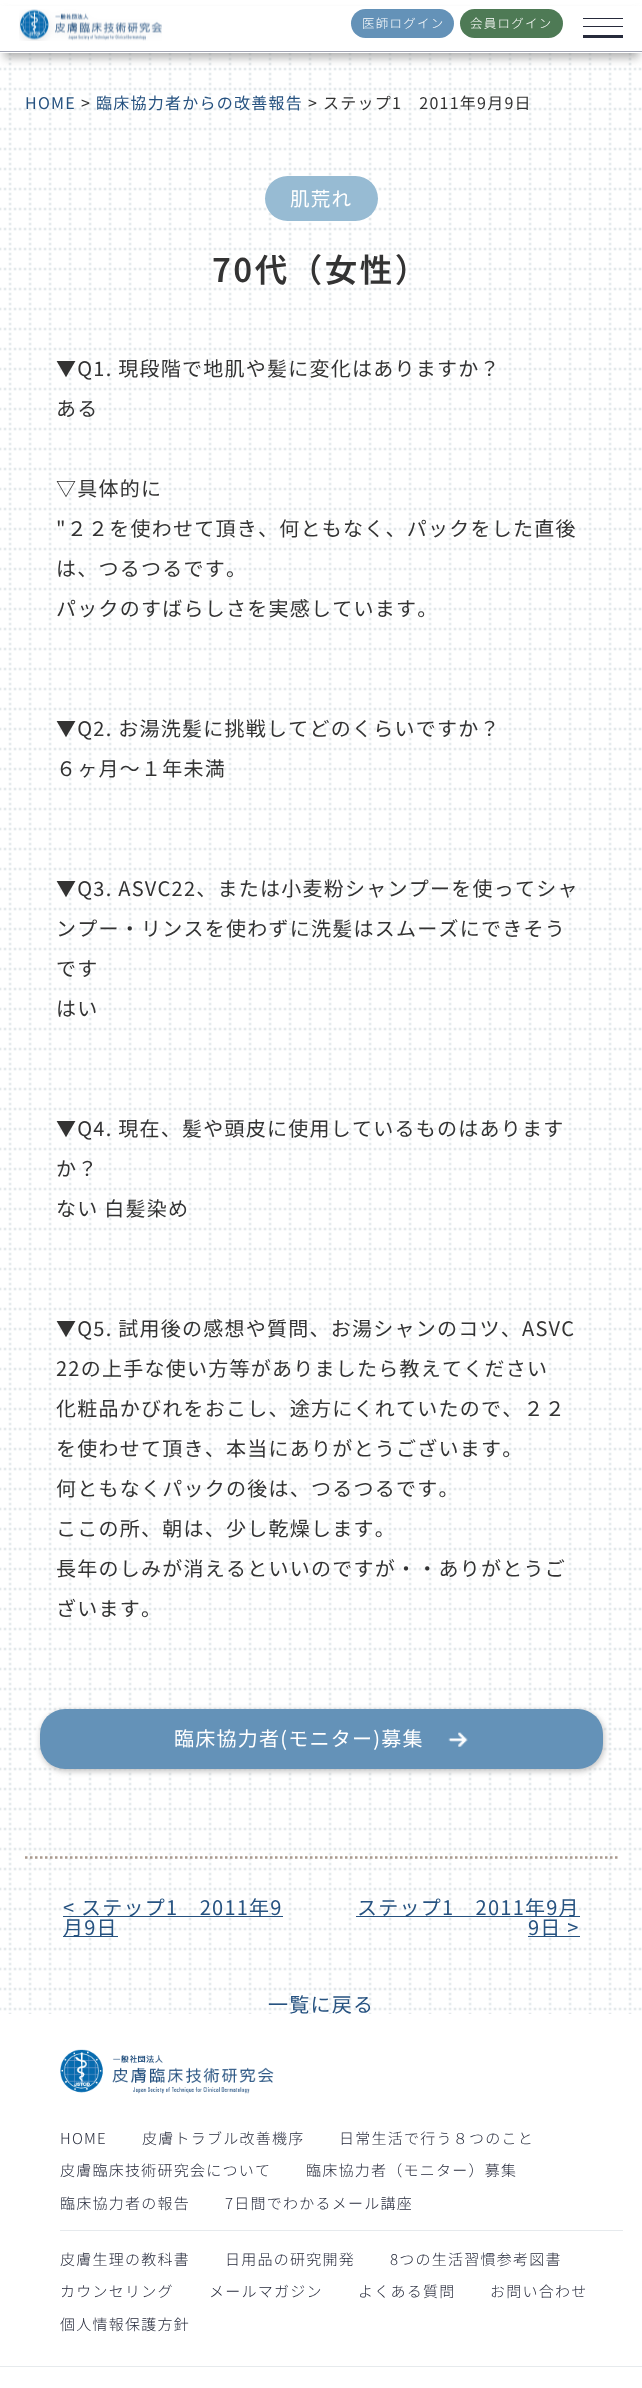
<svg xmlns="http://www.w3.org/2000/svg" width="642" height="2388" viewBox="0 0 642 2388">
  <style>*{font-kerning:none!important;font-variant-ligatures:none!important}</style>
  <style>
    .t1 { font: 300 12.5px Noto Sans JP; letter-spacing: 1.25px; fill: #fff; }
    .t2 { font: 16px Noto Sans JP; letter-spacing: 1.25px; fill: #265280; }
    .t3 { font: 16px Noto Sans JP; letter-spacing: 1.25px; fill: #333; }
    .t4 { font: 19.5px Noto Sans JP; letter-spacing: 1.25px; fill: #fff; }
    .t5 { font: 600 32.5px Noto Sans JP; letter-spacing: 2.5px; fill: #333; }
    .t6 { font: 20px Noto Sans JP; letter-spacing: 1.25px; fill: #333; }
    .t7 { font: 20px Noto Sans JP; letter-spacing: 1.25px; fill: #fff; }
    .t8 { font: 20px Noto Sans JP; letter-spacing: 1.25px; fill: #265280; }
    .t9 { font: 300 15px Noto Sans JP; letter-spacing: 1.25px; fill: #262a3b; }
  </style>
  <rect width="100%" height="100%" fill="#fff"/>
  <image x="0" y="53" width="642" height="1961" href="images/1.png"/>
  <rect x="4" y="13" width="635" height="45" fill="#8a8a8aa6" filter="blur(4px)"/>
  <rect x="0" y="6" width="642" height="47" fill="#fff"/>
  <rect x="0" y="51" width="642" height="1" fill="#a0a3b2"/>
  <image x="19" y="9" width="143" height="32" href="images/2.png"/>
  <rect x="351" y="9" width="103" height="29" rx="14.5" fill="#6492b8"/>
  <text x="362" y="28" class="t1">医師ログイン</text>
  <rect x="460" y="9" width="103" height="29" rx="14.5" fill="#4e7a55"/>
  <text x="470" y="28" class="t1">会員ログイン</text>
  <rect x="583" y="18" width="40" height="1" fill="#262a3b"/>
  <rect x="583" y="26" width="40" height="1" fill="#262a3b"/>
  <rect x="583" y="35" width="40" height="3" fill="#262a3b"/>
  <text x="25" y="109" class="t2">HOME</text>
  <text x="81" y="109" class="t3">&gt;</text>
  <text x="96" y="109" class="t2">臨床協力者からの改善報告</text>
  <text x="308" y="109" class="t3">&gt; ステップ1　2011年9月9日</text>
  <rect x="265" y="176" width="113" height="45" rx="22.5" fill="#97bbd3"/>
  <text x="290" y="206" class="t4">肌荒れ</text>
  <text x="212" y="282" class="t5">70代（女性）</text>
  <text x="56" y="376" class="t6">▼Q1. 現段階で地肌や髪に変化はありますか？</text>
  <text x="56" y="416" class="t6">ある</text>
  <text x="56" y="496" class="t6">▽具体的に</text>
  <text x="56" y="536" class="t6">"２２を使わせて頂き、何ともなく、パックをした直後</text>
  <text x="56" y="576" class="t6">は、つるつるです。</text>
  <text x="56" y="616" class="t6">パックのすばらしさを実感しています。</text>
  <text x="56" y="736" class="t6">▼Q2. お湯洗髪に挑戦してどのくらいですか？</text>
  <text x="56" y="776" class="t6">６ヶ月～１年未満</text>
  <text x="56" y="896" class="t6">▼Q3. ASVC22、または小麦粉シャンプーを使ってシャ</text>
  <text x="56" y="936" class="t6">ンプー・リンスを使わずに洗髪はスムーズにできそう</text>
  <text x="56" y="976" class="t6">です</text>
  <text x="56" y="1016" class="t6">はい</text>
  <text x="56" y="1136" class="t6">▼Q4. 現在、髪や頭皮に使用しているものはあります</text>
  <text x="56" y="1176" class="t6">か？</text>
  <text x="56" y="1216" class="t6">ない 白髪染め</text>
  <text x="56" y="1336" class="t6">▼Q5. 試用後の感想や質問、お湯シャンのコツ、ASVC</text>
  <text x="56" y="1376" class="t6">22の上手な使い方等がありましたら教えてください</text>
  <text x="56" y="1416" class="t6">化粧品かびれをおこし、途方にくれていたので、２２</text>
  <text x="56" y="1456" class="t6">を使わせて頂き、本当にありがとうございます。</text>
  <text x="56" y="1496" class="t6">何ともなくパックの後は、つるつるです。</text>
  <text x="56" y="1536" class="t6">ここの所、朝は、少し乾燥します。</text>
  <text x="56" y="1576" class="t6">長年のしみが消えるといいのですが・・ありがとうご</text>
  <text x="56" y="1616" class="t6">ざいます。</text>
  <rect x="41" y="1711" width="563" height="60" rx="25" fill="#bdbdbd" filter="blur(3px)"/>
  <rect x="40" y="1709" width="563" height="60" rx="25" fill="#6492b8"/>
  <text x="174" y="1746" class="t7">臨床協力者(モニター)募集</text>
  <image x="448" y="1732" width="20" height="15" href="images/3.png"/>
  <path d="M25 1857.5H617.5" fill="none" stroke="#a9998e" stroke-width="2.5" stroke-dasharray="2.5 2.5"/>
  <rect x="63" y="1916" width="220" height="1" fill="#265280"/>
  <text x="63" y="1915" class="t8">&lt; ステップ1　2011年9</text>
  <rect x="63" y="1936" width="55" height="1" fill="#265280"/>
  <text x="63" y="1935" class="t8">月9日</text>
  <rect x="356" y="1916" width="224" height="1" fill="#265280"/>
  <text x="357" y="1915" class="t8">ステップ1　2011年9月</text>
  <rect x="528" y="1936" width="52" height="1" fill="#265280"/>
  <text x="528" y="1935" class="t8">9日 &gt;</text>
  <text x="268" y="2012" class="t8">一覧に戻る</text>
  <image x="60" y="2049" width="214" height="45" href="images/4.png"/>
  <text x="60" y="2144" class="t9">HOME</text>
  <text x="142" y="2144" class="t9">皮膚トラブル改善機序</text>
  <text x="339" y="2144" class="t9">日常生活で行う８つのこと</text>
  <text x="60" y="2176" class="t9">皮膚臨床技術研究会について</text>
  <text x="306" y="2176" class="t9">臨床協力者（モニター）募集</text>
  <text x="60" y="2209" class="t9">臨床協力者の報告</text>
  <text x="225" y="2209" class="t9">7日間でわかるメール講座</text>
  <rect x="60" y="2230" width="563" height="1" fill="#e6eaed"/>
  <text x="60" y="2265" class="t9">皮膚生理の教科書</text>
  <text x="225" y="2265" class="t9">日用品の研究開発</text>
  <text x="390" y="2265" class="t9">8つの生活習慣参考図書</text>
  <text x="60" y="2297" class="t9">カウンセリング</text>
  <text x="209" y="2297" class="t9">メールマガジン</text>
  <text x="358" y="2297" class="t9">よくある質問</text>
  <text x="490" y="2297" class="t9">お問い合わせ</text>
  <text x="60" y="2330" class="t9">個人情報保護方針</text>
  <rect x="0" y="2366" width="642" height="1" fill="#e6eaed"/>
</svg>
